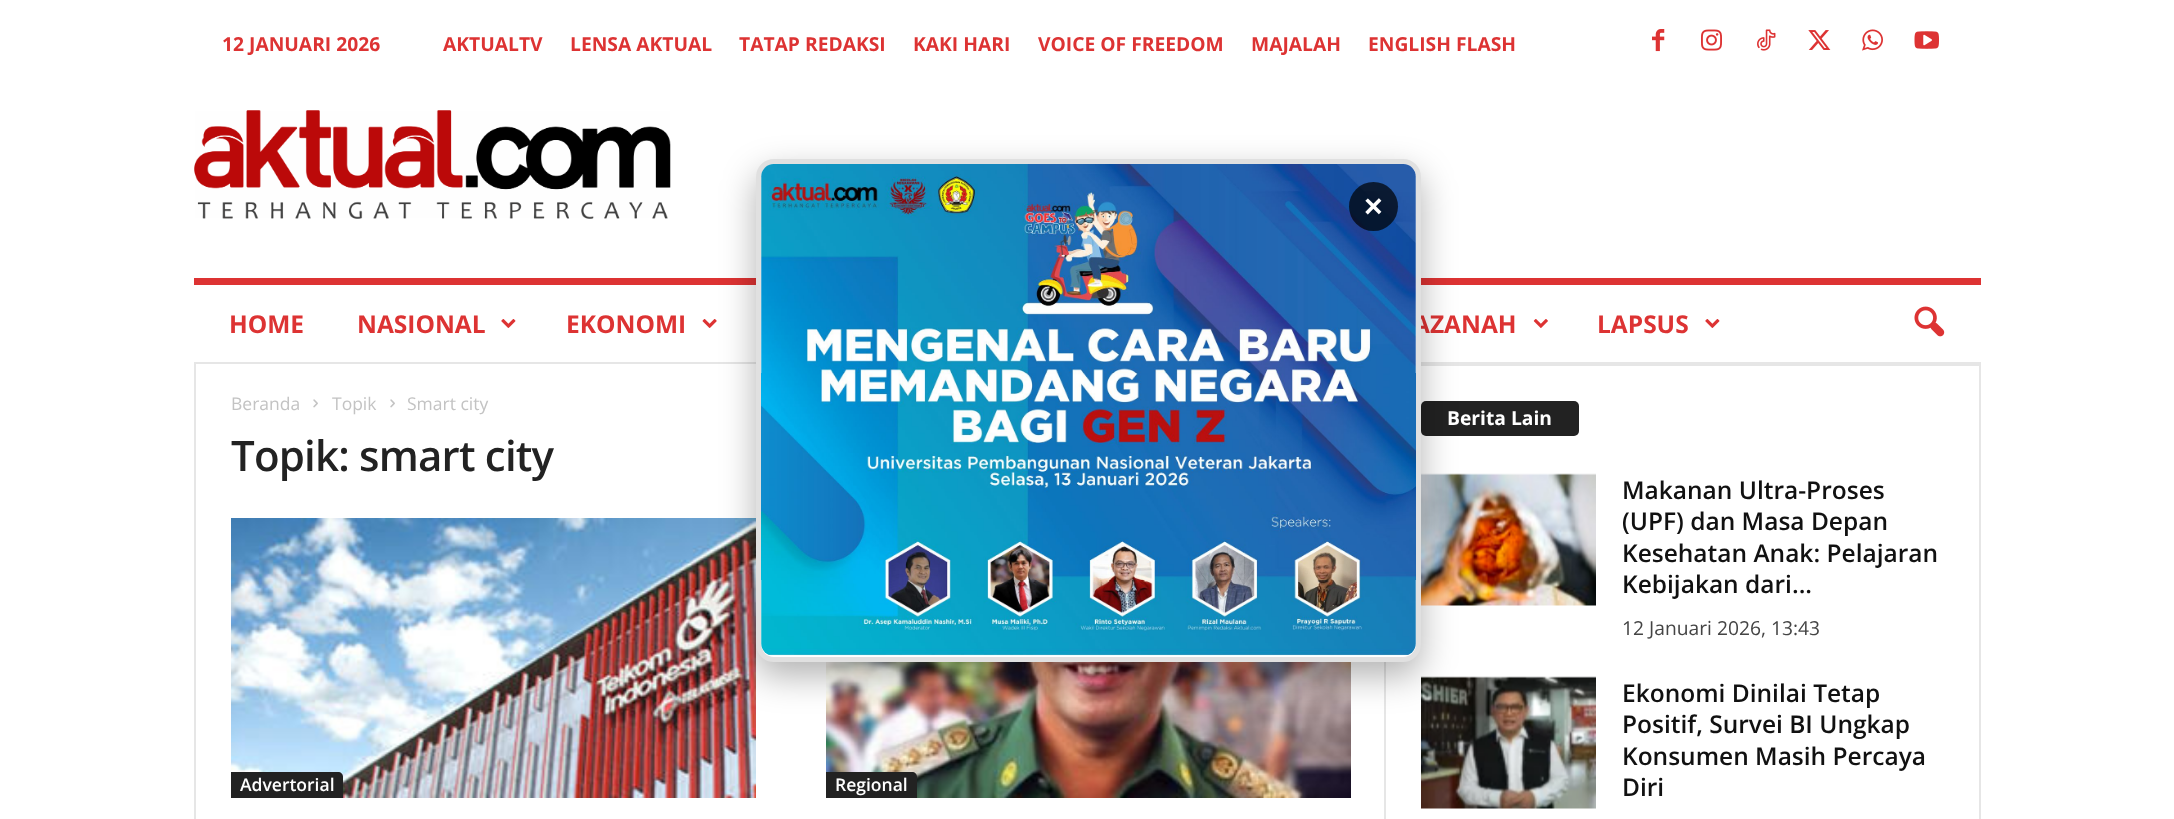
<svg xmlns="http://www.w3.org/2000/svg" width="2174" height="819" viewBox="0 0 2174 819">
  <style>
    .t1 { font: bold 19.25px Open Sans; fill: #d33; }
    .t2 { font: bold 24.5px Open Sans; fill: #d33; }
    .t3 { font: 17.5px Open Sans; fill: #c3c3c3; }
    .t4 { font: 600 42px Open Sans; letter-spacing: -0.8px; fill: #222; }
    .t5 { font: 600 17.5px Open Sans; fill: #fff; }
    .t6 { font: bold 19.25px Open Sans; fill: #fff; }
    .t7 { font: 600 24.5px Open Sans; fill: #111; }
    .t8 { font: 19.25px Open Sans; fill: #444; }
    .t9 { font: bold 32px Liberation Sans; fill: #fff; }
  </style>
  <rect width="100%" height="100%" fill="#fff"/>
  <text x="222" y="51" class="t1">12 JANUARI 2026</text>
  <text x="443" y="51" class="t1">AKTUALTV</text>
  <text x="570" y="51" class="t1">LENSA AKTUAL</text>
  <text x="739" y="51" class="t1">TATAP REDAKSI</text>
  <text x="913" y="51" class="t1">KAKI HARI</text>
  <text x="1038" y="51" class="t1">VOICE OF FREEDOM</text>
  <text x="1251" y="51" class="t1">MAJALAH</text>
  <text x="1368" y="51" class="t1">ENGLISH FLASH</text>
  <image x="1652" y="29" width="13" height="23" href="images/1.png"/>
  <image x="1701" y="29" width="21" height="22" href="images/2.png"/>
  <image x="1757" y="29" width="19" height="22" href="images/3.png"/>
  <image x="1808" y="30" width="23" height="20" href="images/4.png"/>
  <image x="1862" y="29" width="21" height="22" href="images/5.png"/>
  <image x="1914" y="31" width="25" height="18" href="images/6.png"/>
  <image x="194" y="110" width="477" height="109" href="images/7.png"/>
  <rect x="194" y="362" width="1787" height="2" fill="#e6e6e6"/>
  <rect x="194" y="278" width="1787" height="7" fill="#d33"/>
  <text x="229" y="333" class="t2">HOME</text>
  <text x="357" y="333" class="t2">NASIONAL</text>
  <image x="501" y="319" width="15" height="9" href="images/8.png"/>
  <text x="566" y="333" class="t2">EKONOMI</text>
  <image x="702" y="319" width="15" height="9" href="images/9.png"/>
  <text x="1413" y="333" class="t2">AZANAH</text>
  <image x="1533" y="319" width="15" height="9" href="images/10.png"/>
  <text x="1597" y="333" class="t2">LAPSUS</text>
  <image x="1705" y="319" width="15" height="9" href="images/8.png"/>
  <image x="1914" y="306" width="31" height="31" href="images/11.png"/>
  <rect x="194" y="364" width="2" height="455" fill="#e6e6e6"/>
  <text x="231" y="410" class="t3">Beranda</text>
  <image x="313" y="399" width="5" height="9" href="images/12.png"/>
  <text x="332" y="410" class="t3">Topik</text>
  <image x="390" y="399" width="5" height="9" href="images/12.png"/>
  <text x="407" y="410" class="t3">Smart city</text>
  <text x="231" y="471" class="t4">Topik: smart city</text>
  <image x="231" y="518" width="525" height="280" href="images/13.png"/>
  <path d="M231 772H338C341 772 343 774 343 777V798H231Z" fill="#222"/>
  <text x="240" y="791" class="t5">Advertorial</text>
  <image x="826" y="662" width="525" height="136" href="images/14.png"/>
  <path d="M826 772H912C915 772 917 774 917 777V798H826Z" fill="#222"/>
  <text x="835" y="791" class="t5">Regional</text>
  <rect x="1384" y="662" width="2" height="157" fill="#e6e6e6"/>
  <rect x="1421" y="364" width="558" height="2" fill="#e6e6e6"/>
  <rect x="1421" y="401" width="158" height="35" rx="5" fill="#222"/>
  <text x="1447" y="425" class="t6">Berita Lain</text>
  <image x="1421" y="473" width="175" height="133" href="images/15.png"/>
  <text x="1622" y="499" class="t7">Makanan Ultra-Proses</text>
  <text x="1622" y="530" class="t7">(UPF) dan Masa Depan</text>
  <text x="1622" y="562" class="t7">Kesehatan Anak: Pelajaran</text>
  <text x="1622" y="593" class="t7">Kebijakan dari...</text>
  <text x="1622" y="635" class="t8">12 Januari 2026, 13:43</text>
  <image x="1421" y="676" width="175" height="133" href="images/16.png"/>
  <text x="1622" y="702" class="t7">Ekonomi Dinilai Tetap</text>
  <text x="1622" y="733" class="t7">Positif, Survei BI Ungkap</text>
  <text x="1622" y="765" class="t7">Konsumen Masih Percaya</text>
  <text x="1622" y="796" class="t7">Diri</text>
  <rect x="1979" y="364" width="2" height="455" fill="#e6e6e6"/>
  <rect x="756" y="173" width="665" height="503" rx="18" fill="#0000004d" filter="blur(17.5px)"/>
  <rect x="758.5" y="161.5" width="660" height="498" rx="15.5" fill="#fff" stroke="#e0e0e0" stroke-width="5"/>
  <image x="761" y="164" width="655" height="492" href="images/17.png"/>
  <circle cx="1373.5" cy="206.5" r="24.5" fill="#000000b3"/>
  <text x="1364" y="217" class="t9">×</text>
</svg>
